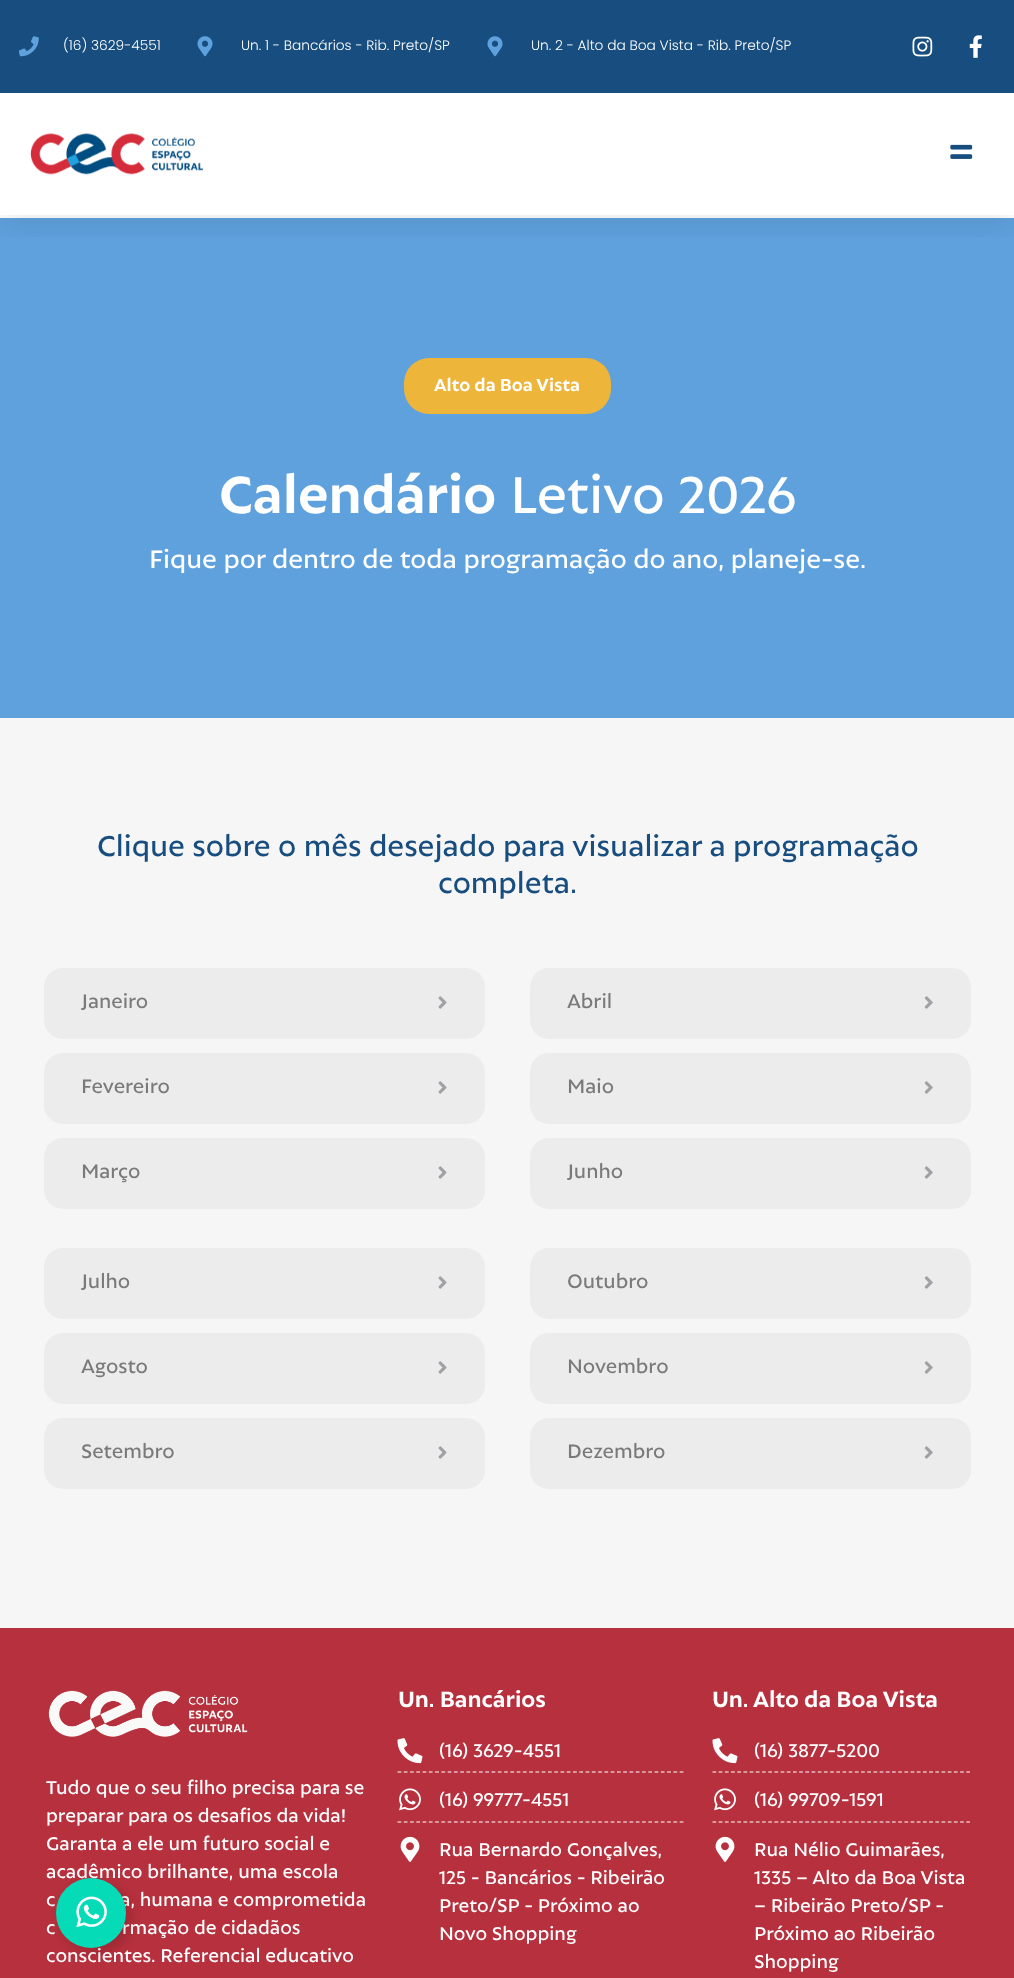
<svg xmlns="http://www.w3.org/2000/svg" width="1014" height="1978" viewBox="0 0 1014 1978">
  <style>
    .t1 { font: 300 13.75px Poppins; fill: #fff; }
    .t2 { font: bold 18.75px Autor; fill: #fff; }
    .t3 { font: bold 56.25px Autor; fill: #fff; }
    .t4 { font: 500 56.25px Autor; fill: #fff; }
    .t5 { font: 500 27.5px Autor; fill: #fff; }
    .t6 { font: 500 31.25px Autor; fill: #184e7f; }
    .t7 { font: 500 21.25px Autor; fill: #7a7a7a; }
    .t8 { font: 500 20px Autor; fill: #fff; }
    .t9 { font: bold 23.75px Autor; fill: #fff; }
  </style>
  <defs>
    <clipPath id="clip1"><rect x="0" y="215" width="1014" height="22"/></clipPath>
  </defs>
  <rect width="100%" height="100%" fill="#fff"/>
  <rect x="0" y="218" width="1014" height="500" fill="#5fa1dd"/>
  <g clip-path="url(#clip1)">
    <rect x="0" y="6" width="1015" height="215" fill="#0000001a" filter="blur(19px)"/>
  </g>
  <rect x="0" y="0" width="1014" height="93" fill="#184e7f"/>
  <image x="19" y="36" width="20" height="21" href="images/1.png"/>
  <text x="63" y="50" class="t1">(16) 3629-4551</text>
  <image x="197" y="36" width="16" height="21" href="images/2.png"/>
  <text x="241" y="50" class="t1">Un. 1 - Bancários - Rib. Preto/SP</text>
  <image x="487" y="36" width="16" height="21" href="images/2.png"/>
  <text x="531" y="50" class="t1">Un. 2 - Alto da Boa Vista - Rib. Preto/SP</text>
  <image x="912" y="36" width="21" height="21" href="images/3.png"/>
  <image x="969" y="35" width="13" height="23" href="images/4.png"/>
  <image x="30" y="133" width="174" height="42" href="images/5.png"/>
  <image x="950" y="144" width="23" height="15" href="images/6.png"/>
  <rect x="404" y="358" width="207" height="56" rx="25" fill="#edb53a"/>
  <text x="434" y="391" class="t2">Alto da Boa Vista</text>
  <text x="219" y="513" class="t3">Calendário</text>
  <text x="510" y="513" class="t4">Letivo 2026</text>
  <text x="149" y="568" class="t5">Fique por dentro de toda programação do ano, planeje-se.</text>
  <rect x="0" y="718" width="1014" height="910" fill="#f6f6f6"/>
  <text x="97" y="856" class="t6">Clique sobre o mês desejado para visualizar a programação</text>
  <text x="438" y="893" class="t6">completa.</text>
  <rect x="44" y="968" width="441" height="71" rx="19" fill="#ececec"/>
  <text x="81" y="1008" class="t7">Janeiro</text>
  <image x="438" y="996" width="9" height="13" href="images/7.png"/>
  <rect x="44" y="1053" width="441" height="71" rx="19" fill="#ececec"/>
  <text x="81" y="1093" class="t7">Fevereiro</text>
  <image x="438" y="1081" width="9" height="13" href="images/7.png"/>
  <rect x="44" y="1138" width="441" height="71" rx="19" fill="#ececec"/>
  <text x="81" y="1178" class="t7">Março</text>
  <image x="438" y="1166" width="9" height="13" href="images/7.png"/>
  <rect x="530" y="968" width="441" height="71" rx="19" fill="#ececec"/>
  <text x="567" y="1008" class="t7">Abril</text>
  <image x="924" y="996" width="9" height="13" href="images/8.png"/>
  <rect x="530" y="1053" width="441" height="71" rx="19" fill="#ececec"/>
  <text x="567" y="1093" class="t7">Maio</text>
  <image x="924" y="1081" width="9" height="13" href="images/8.png"/>
  <rect x="530" y="1138" width="441" height="71" rx="19" fill="#ececec"/>
  <text x="567" y="1178" class="t7">Junho</text>
  <image x="924" y="1166" width="9" height="13" href="images/8.png"/>
  <rect x="44" y="1248" width="441" height="71" rx="19" fill="#ececec"/>
  <text x="81" y="1288" class="t7">Julho</text>
  <image x="438" y="1276" width="9" height="13" href="images/7.png"/>
  <rect x="44" y="1333" width="441" height="71" rx="19" fill="#ececec"/>
  <text x="81" y="1373" class="t7">Agosto</text>
  <image x="438" y="1361" width="9" height="13" href="images/7.png"/>
  <rect x="44" y="1418" width="441" height="71" rx="19" fill="#ececec"/>
  <text x="81" y="1458" class="t7">Setembro</text>
  <image x="438" y="1446" width="9" height="13" href="images/7.png"/>
  <rect x="530" y="1248" width="441" height="71" rx="19" fill="#ececec"/>
  <text x="567" y="1288" class="t7">Outubro</text>
  <image x="924" y="1276" width="9" height="13" href="images/8.png"/>
  <rect x="530" y="1333" width="441" height="71" rx="19" fill="#ececec"/>
  <text x="567" y="1373" class="t7">Novembro</text>
  <image x="924" y="1361" width="9" height="13" href="images/8.png"/>
  <rect x="530" y="1418" width="441" height="71" rx="19" fill="#ececec"/>
  <text x="567" y="1458" class="t7">Dezembro</text>
  <image x="924" y="1446" width="9" height="13" href="images/8.png"/>
  <rect x="0" y="1628" width="1014" height="350" fill="#b7303d"/>
  <image x="48" y="1690" width="200" height="47" href="images/9.png"/>
  <text x="46" y="1794" class="t8">Tudo que o seu filho precisa para se</text>
  <text x="46" y="1822" class="t8">preparar para os desafios da vida!</text>
  <text x="46" y="1850" class="t8">Garanta a ele um futuro social e</text>
  <text x="46" y="1878" class="t8">acadêmico brilhante, uma escola</text>
  <text x="46" y="1906" class="t8">c</text>
  <text x="120" y="1906" class="t8">a, humana e comprometida</text>
  <text x="46" y="1934" class="t8">c</text>
  <text x="122" y="1934" class="t8">rmação de cidadãos</text>
  <text x="46" y="1962" class="t8">conscientes. Referencial educativo</text>
  <text x="398" y="1707" class="t9">Un. Bancários</text>
  <image x="397" y="1738" width="26" height="26" href="images/10.png"/>
  <text x="439" y="1757" class="t8">(16) 3629-4551</text>
  <path d="M397.5 1772H684" fill="none" stroke="#fff" stroke-width="1.2" stroke-dasharray="3.75 2.52"/>
  <image x="399" y="1788" width="22" height="23" href="images/11.png"/>
  <text x="439" y="1806" class="t8">(16) 99777-4551</text>
  <path d="M397.5 1822H684" fill="none" stroke="#fff" stroke-width="1.2" stroke-dasharray="3.75 2.52"/>
  <image x="400" y="1836" width="20" height="26" href="images/12.png"/>
  <text x="439" y="1856" class="t8">Rua Bernardo Gonçalves,</text>
  <text x="439" y="1884" class="t8">125 - Bancários - Ribeirão</text>
  <text x="439" y="1912" class="t8">Preto/SP - Próximo ao</text>
  <text x="439" y="1940" class="t8">Novo Shopping</text>
  <text x="712" y="1707" class="t9">Un. Alto da Boa Vista</text>
  <image x="712" y="1738" width="26" height="26" href="images/10.png"/>
  <text x="754" y="1757" class="t8">(16) 3877-5200</text>
  <path d="M712.5 1772H970" fill="none" stroke="#fff" stroke-width="1.2" stroke-dasharray="3.75 2.44"/>
  <image x="714" y="1788" width="22" height="23" href="images/11.png"/>
  <text x="754" y="1806" class="t8">(16) 99709-1591</text>
  <path d="M712.5 1822H970" fill="none" stroke="#fff" stroke-width="1.2" stroke-dasharray="3.75 2.44"/>
  <image x="715" y="1836" width="20" height="26" href="images/12.png"/>
  <text x="754" y="1856" class="t8">Rua Nélio Guimarães,</text>
  <text x="754" y="1884" class="t8">1335 – Alto da Boa Vista</text>
  <text x="754" y="1912" class="t8">– Ribeirão Preto/SP -</text>
  <text x="754" y="1940" class="t8">Próximo ao Ribeirão</text>
  <text x="754" y="1968" class="t8">Shopping</text>
  <rect x="61" y="1883" width="70" height="70" rx="35" fill="#00000026" filter="blur(6px)"/>
  <circle cx="91" cy="1913" r="35" fill="#06dbb8"/>
  <image x="76" y="1896" width="31" height="32" href="images/13.png"/>
</svg>
